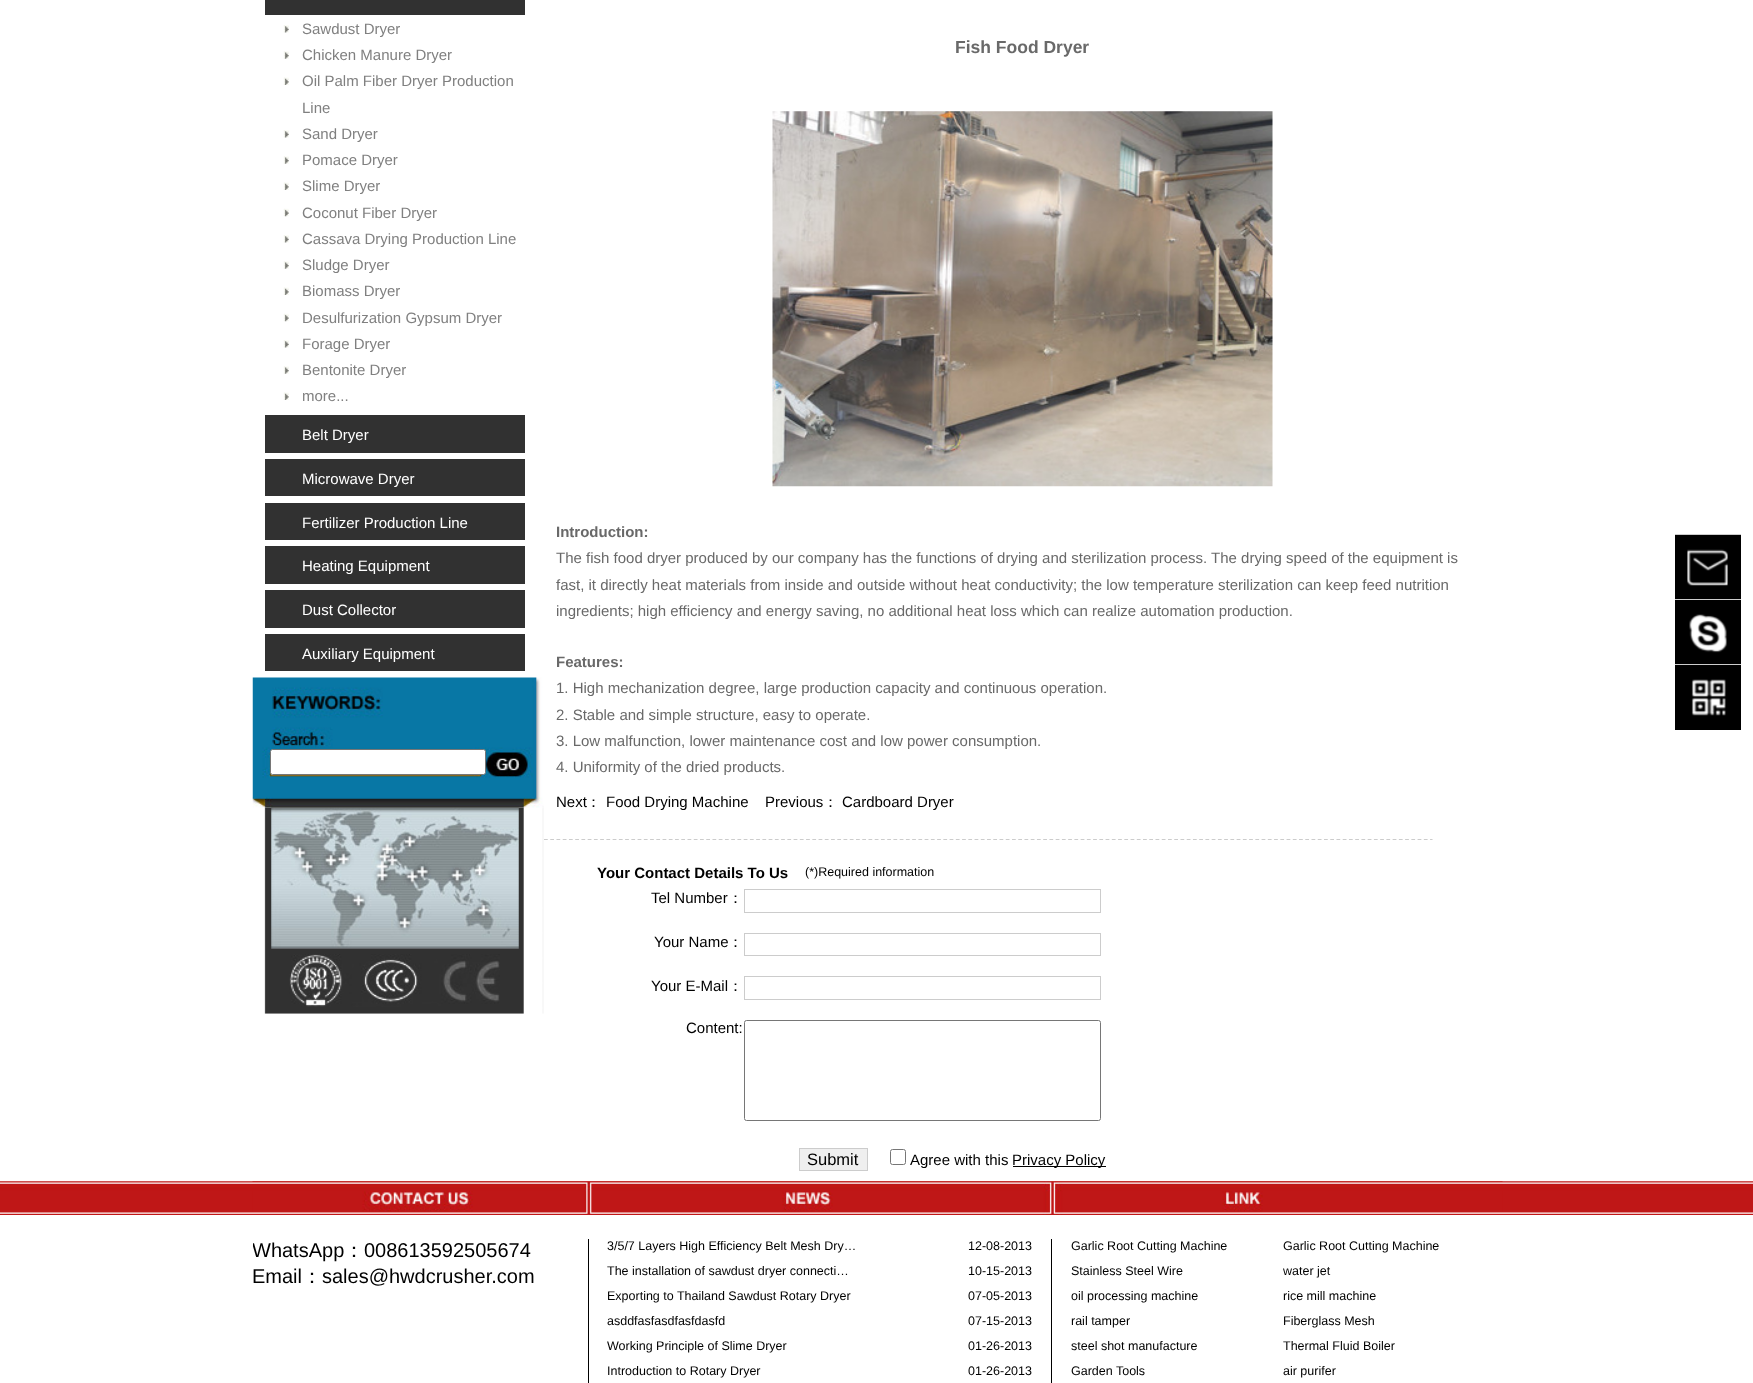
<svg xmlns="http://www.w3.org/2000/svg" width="1753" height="1383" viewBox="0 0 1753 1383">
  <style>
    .t1 { font: 15px Liberation Sans; fill: #808080; }
    .t2 { font: 15px Liberation Sans; fill: #fff; }
    .t3 { font: bold 17.5px Liberation Sans; fill: #696969; }
    .t4 { font: bold 15px Liberation Sans; fill: #696969; }
    .t5 { font: 15px Liberation Sans; fill: #696969; }
    .t6 { font: 15px Liberation Sans; fill: #000; }
    .t7 { font: 500 15px WenQuanYi Zen Hei; fill: #000; }
    .t8 { font: bold 15px Liberation Sans; fill: #000; }
    .t9 { font: 12.5px Liberation Sans; fill: #000; }
    .t10 { font: 16.5px Liberation Sans; fill: #000; }
    .t11 { font: 20px Liberation Sans; fill: #000; }
    .t12 { font: 500 20px WenQuanYi Zen Hei; fill: #000; }
  </style>
  <defs>
    <clipPath id="clip1"><rect x="253" y="1239" width="316" height="52"/></clipPath>
  </defs>
  <rect width="100%" height="100%" fill="#fff"/>
  <rect x="265" y="0" width="260" height="15" fill="#313131"/>
  <image x="283" y="25" width="6" height="8" href="images/1.png"/>
  <text x="302" y="34" class="t1">Sawdust Dryer</text>
  <image x="283" y="51" width="6" height="8" href="images/2.png"/>
  <text x="302" y="60" class="t1">Chicken Manure Dryer</text>
  <image x="283" y="77" width="6" height="8" href="images/3.png"/>
  <text x="302" y="86" class="t1">Oil Palm Fiber Dryer Production</text>
  <text x="302" y="113" class="t1">Line</text>
  <image x="283" y="130" width="6" height="8" href="images/1.png"/>
  <text x="302" y="139" class="t1">Sand Dryer</text>
  <image x="283" y="156" width="6" height="8" href="images/2.png"/>
  <text x="302" y="165" class="t1">Pomace Dryer</text>
  <image x="283" y="182" width="6" height="8" href="images/3.png"/>
  <text x="302" y="191" class="t1">Slime Dryer</text>
  <image x="283" y="208" width="6" height="9" href="images/4.png"/>
  <text x="302" y="218" class="t1">Coconut Fiber Dryer</text>
  <image x="283" y="235" width="6" height="8" href="images/1.png"/>
  <text x="302" y="244" class="t1">Cassava Drying Production Line</text>
  <image x="283" y="261" width="6" height="8" href="images/2.png"/>
  <text x="302" y="270" class="t1">Sludge Dryer</text>
  <image x="283" y="287" width="6" height="8" href="images/3.png"/>
  <text x="302" y="296" class="t1">Biomass Dryer</text>
  <image x="283" y="313" width="6" height="9" href="images/4.png"/>
  <text x="302" y="323" class="t1">Desulfurization Gypsum Dryer</text>
  <image x="283" y="340" width="6" height="8" href="images/1.png"/>
  <text x="302" y="349" class="t1">Forage Dryer</text>
  <image x="283" y="366" width="6" height="8" href="images/2.png"/>
  <text x="302" y="375" class="t1">Bentonite Dryer</text>
  <image x="283" y="392" width="6" height="8" href="images/3.png"/>
  <text x="302" y="401" class="t1">more...</text>
  <rect x="265" y="415" width="260" height="38" fill="#313131"/>
  <text x="302" y="440" class="t2">Belt Dryer</text>
  <rect x="265" y="459" width="260" height="37" fill="#313131"/>
  <text x="302" y="484" class="t2">Microwave Dryer</text>
  <rect x="265" y="503" width="260" height="37" fill="#313131"/>
  <text x="302" y="528" class="t2">Fertilizer Production Line</text>
  <rect x="265" y="546" width="260" height="38" fill="#313131"/>
  <text x="302" y="571" class="t2">Heating Equipment</text>
  <rect x="265" y="590" width="260" height="38" fill="#313131"/>
  <text x="302" y="615" class="t2">Dust Collector</text>
  <rect x="265" y="634" width="260" height="37" fill="#313131"/>
  <text x="302" y="659" class="t2">Auxiliary Equipment</text>
  <image x="264" y="807" width="280" height="207" href="images/6.png"/>
  <image x="271" y="807" width="248" height="142" href="images/7.png"/>
  <image x="252" y="677" width="292" height="131" href="images/5.png"/>
  <rect x="270.5" y="749.5" width="215" height="25" rx="2" fill="#fff" stroke="#767676"/>
  <image x="289" y="954" width="211" height="53" href="images/8.png"/>
  <text x="955" y="53" class="t3">Fish Food Dryer</text>
  <image x="772" y="111" width="501" height="376" href="images/9.png"/>
  <text x="556" y="537" class="t4">Introduction:</text>
  <text x="556" y="563" class="t5">The fish food dryer produced by our company has the functions of drying and sterilization process. The drying speed of the equipment is</text>
  <text x="556" y="590" class="t5">fast, it directly heat materials from inside and outside without heat conductivity; the low temperature sterilization can keep feed nutrition</text>
  <text x="556" y="616" class="t5">ingredients; high efficiency and energy saving, no additional heat loss which can realize automation production.</text>
  <text x="556" y="667" class="t4">Features:</text>
  <text x="556" y="693" class="t5">1. High mechanization degree, large production capacity and continuous operation.</text>
  <text x="556" y="720" class="t5">2. Stable and simple structure, easy to operate.</text>
  <text x="556" y="746" class="t5">3. Low malfunction, lower maintenance cost and low power consumption.</text>
  <text x="556" y="772" class="t5">4. Uniformity of the dried products.</text>
  <text x="556" y="807" class="t6">Next</text>
  <text x="586" y="807" class="t7">：</text>
  <text x="606" y="807" class="t6">Food Drying Machine</text>
  <text x="765" y="807" class="t6">Previous</text>
  <text x="823" y="807" class="t7">：</text>
  <text x="842" y="807" class="t6">Cardboard Dryer</text>
  <path d="M544 839.5H1432.5" fill="none" stroke="#ccc" stroke-width="1.2" stroke-dasharray="3.75 2.49"/>
  <text x="597" y="878" class="t8">Your Contact Details To Us</text>
  <text x="805" y="876" class="t9">(*)Required information</text>
  <text x="651" y="903" class="t6">Tel Number</text>
  <text x="728" y="903" class="t7">：</text>
  <rect x="744.5" y="889.5" width="356" height="23" fill="none" stroke="#ccc"/>
  <text x="654" y="947" class="t6">Your Name</text>
  <text x="728" y="947" class="t7">：</text>
  <rect x="744.5" y="933.5" width="356" height="22" fill="none" stroke="#ccc"/>
  <text x="651" y="991" class="t6">Your E-Mail</text>
  <text x="728" y="991" class="t7">：</text>
  <rect x="744.5" y="976.5" width="356" height="23" fill="none" stroke="#ccc"/>
  <text x="686" y="1033" class="t6">Content:</text>
  <rect x="744.5" y="1020.5" width="356" height="100" rx="2" fill="none" stroke="#767676"/>
  <rect x="799.5" y="1148.5" width="68" height="22" fill="#efefef" stroke="#ccc"/>
  <text x="807" y="1165" class="t10">Submit</text>
  <rect x="890.5" y="1149.5" width="15" height="15" rx="2" fill="none" stroke="#767676"/>
  <text x="910" y="1165" class="t6">Agree with this</text>
  <rect x="1013" y="1166" width="93" height="1" fill="#000"/>
  <text x="1012" y="1165" class="t6">Privacy Policy</text>
  <rect x="1675" y="600" width="66" height="64" fill="#000"/>
  <rect x="1675" y="535" width="66" height="64" fill="#000"/>
  <rect x="1675" y="534" width="66" height="1" fill="#ccc"/>
  <image x="1687" y="549" width="41" height="37" href="images/10.png"/>
  <rect x="1675" y="599" width="66" height="1" fill="#ccc"/>
  <image x="1689" y="614" width="38" height="39" href="images/11.png"/>
  <rect x="1675" y="665" width="66" height="65" fill="#000"/>
  <rect x="1675" y="664" width="66" height="1" fill="#ccc"/>
  <image x="1691" y="679" width="35" height="37" href="images/12.png"/>
  <image x="0" y="1181" width="1753" height="34" href="images/13.png"/>
  <image x="252" y="1181" width="1251" height="34" href="images/14.png"/>
  <g clip-path="url(#clip1)">
    <text x="252" y="1257" class="t11">WhatsApp</text>
  </g>
  <text x="344" y="1257" class="t12">：</text>
  <text x="364" y="1257" class="t11">008613592505674</text>
  <text x="252" y="1283" class="t11">Email</text>
  <text x="302" y="1283" class="t12">：</text>
  <text x="322" y="1283" class="t11">sales@hwdcrusher.com</text>
  <rect x="588" y="1239" width="1" height="144" fill="#000"/>
  <text x="607" y="1250" class="t9">3/5/7 Layers High Efficiency Belt Mesh Dry…</text>
  <text x="968" y="1250" class="t9">12-08-2013</text>
  <text x="607" y="1275" class="t9">The installation of sawdust dryer connecti…</text>
  <text x="968" y="1275" class="t9">10-15-2013</text>
  <text x="607" y="1300" class="t9">Exporting to Thailand Sawdust Rotary Dryer</text>
  <text x="968" y="1300" class="t9">07-05-2013</text>
  <text x="607" y="1325" class="t9">asddfasfasdfasfdasfd</text>
  <text x="968" y="1325" class="t9">07-15-2013</text>
  <text x="607" y="1350" class="t9">Working Principle of Slime Dryer</text>
  <text x="968" y="1350" class="t9">01-26-2013</text>
  <text x="607" y="1375" class="t9">Introduction to Rotary Dryer</text>
  <text x="968" y="1375" class="t9">01-26-2013</text>
  <rect x="1051" y="1239" width="1" height="144" fill="#000"/>
  <text x="1071" y="1250" class="t9">Garlic Root Cutting Machine</text>
  <text x="1283" y="1250" class="t9">Garlic Root Cutting Machine</text>
  <text x="1071" y="1275" class="t9">Stainless Steel Wire</text>
  <text x="1283" y="1275" class="t9">water jet</text>
  <text x="1071" y="1300" class="t9">oil processing machine</text>
  <text x="1283" y="1300" class="t9">rice mill machine</text>
  <text x="1071" y="1325" class="t9">rail tamper</text>
  <text x="1283" y="1325" class="t9">Fiberglass Mesh</text>
  <text x="1071" y="1350" class="t9">steel shot manufacture</text>
  <text x="1283" y="1350" class="t9">Thermal Fluid Boiler</text>
  <text x="1071" y="1375" class="t9">Garden Tools</text>
  <text x="1283" y="1375" class="t9">air purifer</text>
</svg>
